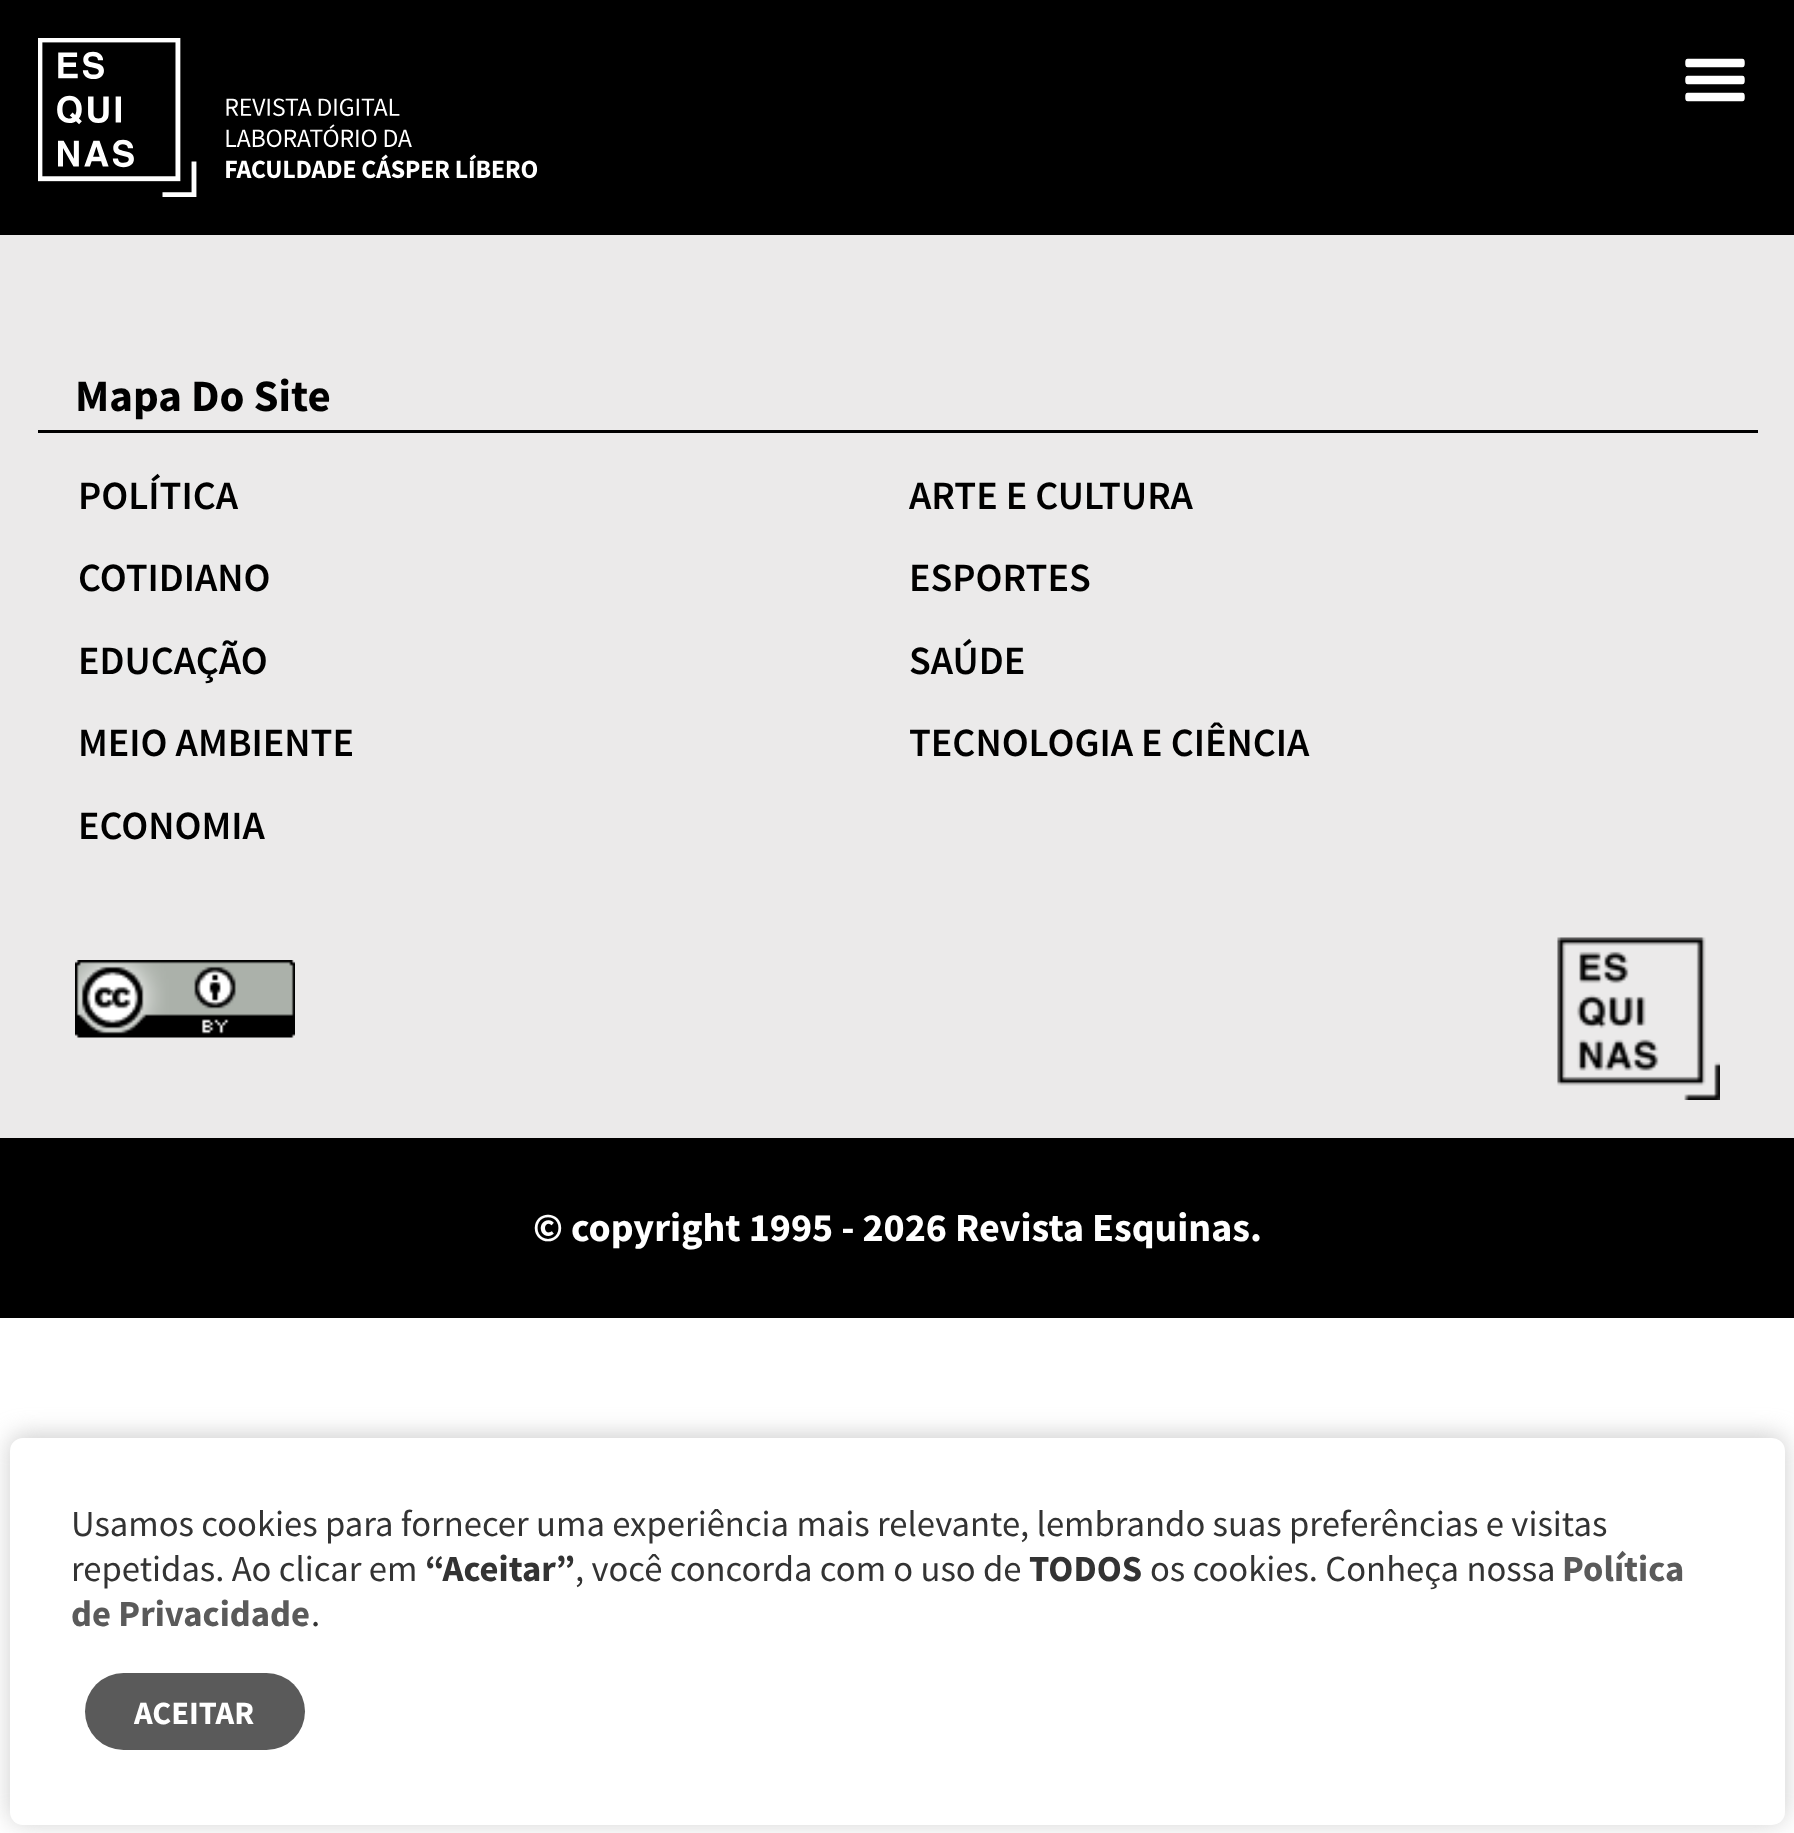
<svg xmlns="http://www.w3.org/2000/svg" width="1794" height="1833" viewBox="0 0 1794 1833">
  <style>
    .t1 { font: bold 45px Source Sans Pro; fill: #000; }
    .t2 { font: 600 40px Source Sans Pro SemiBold; fill: #000; }
    .t3 { font: bold 40px Source Sans Pro; fill: #fff; }
    .t4 { font: 36.65px Source Sans Pro; fill: #333; }
    .t5 { font: bold 36.65px Source Sans Pro; fill: #333; }
    .t6 { font: bold 36.65px Source Sans Pro; fill: #5a5a5a; }
    .t7 { font: bold 32.5px Source Sans Pro; fill: #fff; }
  </style>
  <rect width="100%" height="100%" fill="#fff"/>
  <rect x="0" y="0" width="1794" height="235" fill="#000"/>
  <image x="38" y="38" width="500" height="159" href="images/1.png"/>
  <image x="1685" y="58" width="60" height="44" href="images/2.png"/>
  <rect x="0" y="235" width="1794" height="903" fill="#ebeaea"/>
  <rect x="38" y="430" width="1720" height="3" fill="#000"/>
  <text x="75" y="411" class="t1">Mapa Do Site</text>
  <text x="78" y="509" class="t2">POLÍTICA</text>
  <text x="909" y="509" class="t2">ARTE E CULTURA</text>
  <text x="78" y="591" class="t2">COTIDIANO</text>
  <text x="909" y="591" class="t2">ESPORTES</text>
  <text x="78" y="674" class="t2">EDUCAÇÃO</text>
  <text x="909" y="674" class="t2">SAÚDE</text>
  <text x="78" y="756" class="t2">MEIO AMBIENTE</text>
  <text x="909" y="756" class="t2">TECNOLOGIA E CIÊNCIA</text>
  <text x="78" y="839" class="t2">ECONOMIA</text>
  <image x="75" y="960" width="220" height="78" href="images/3.png"/>
  <image x="1557" y="937" width="163" height="163" href="images/4.png"/>
  <rect x="0" y="1138" width="1794" height="180" fill="#000"/>
  <text x="533" y="1241" class="t3">© copyright 1995 - 2026 Revista Esquinas.</text>
  <rect x="10" y="1435" width="1775" height="388" rx="13" fill="#acabab99" filter="blur(12.5px)"/>
  <rect x="10" y="1438" width="1775" height="387" rx="13" fill="#fff"/>
  <text x="71" y="1536" class="t4">Usamos cookies para fornecer uma experiência mais relevante, lembrando suas preferências e visitas</text>
  <text x="71" y="1581" class="t4">repetidas. Ao clicar em</text>
  <text x="425" y="1581" class="t5">“Aceitar”</text>
  <text x="575" y="1581" class="t4">, você concorda com o uso de</text>
  <text x="1029" y="1581" class="t5">TODOS</text>
  <text x="1150" y="1581" class="t4">os cookies. Conheça nossa</text>
  <text x="1562" y="1581" class="t6">Política</text>
  <text x="71" y="1626" class="t6">de Privacidade</text>
  <text x="311" y="1626" class="t4">.</text>
  <rect x="85" y="1673" width="220" height="77" rx="38.5" fill="#5a5a5a"/>
  <text x="134" y="1724" class="t7">ACEITAR</text>
</svg>
